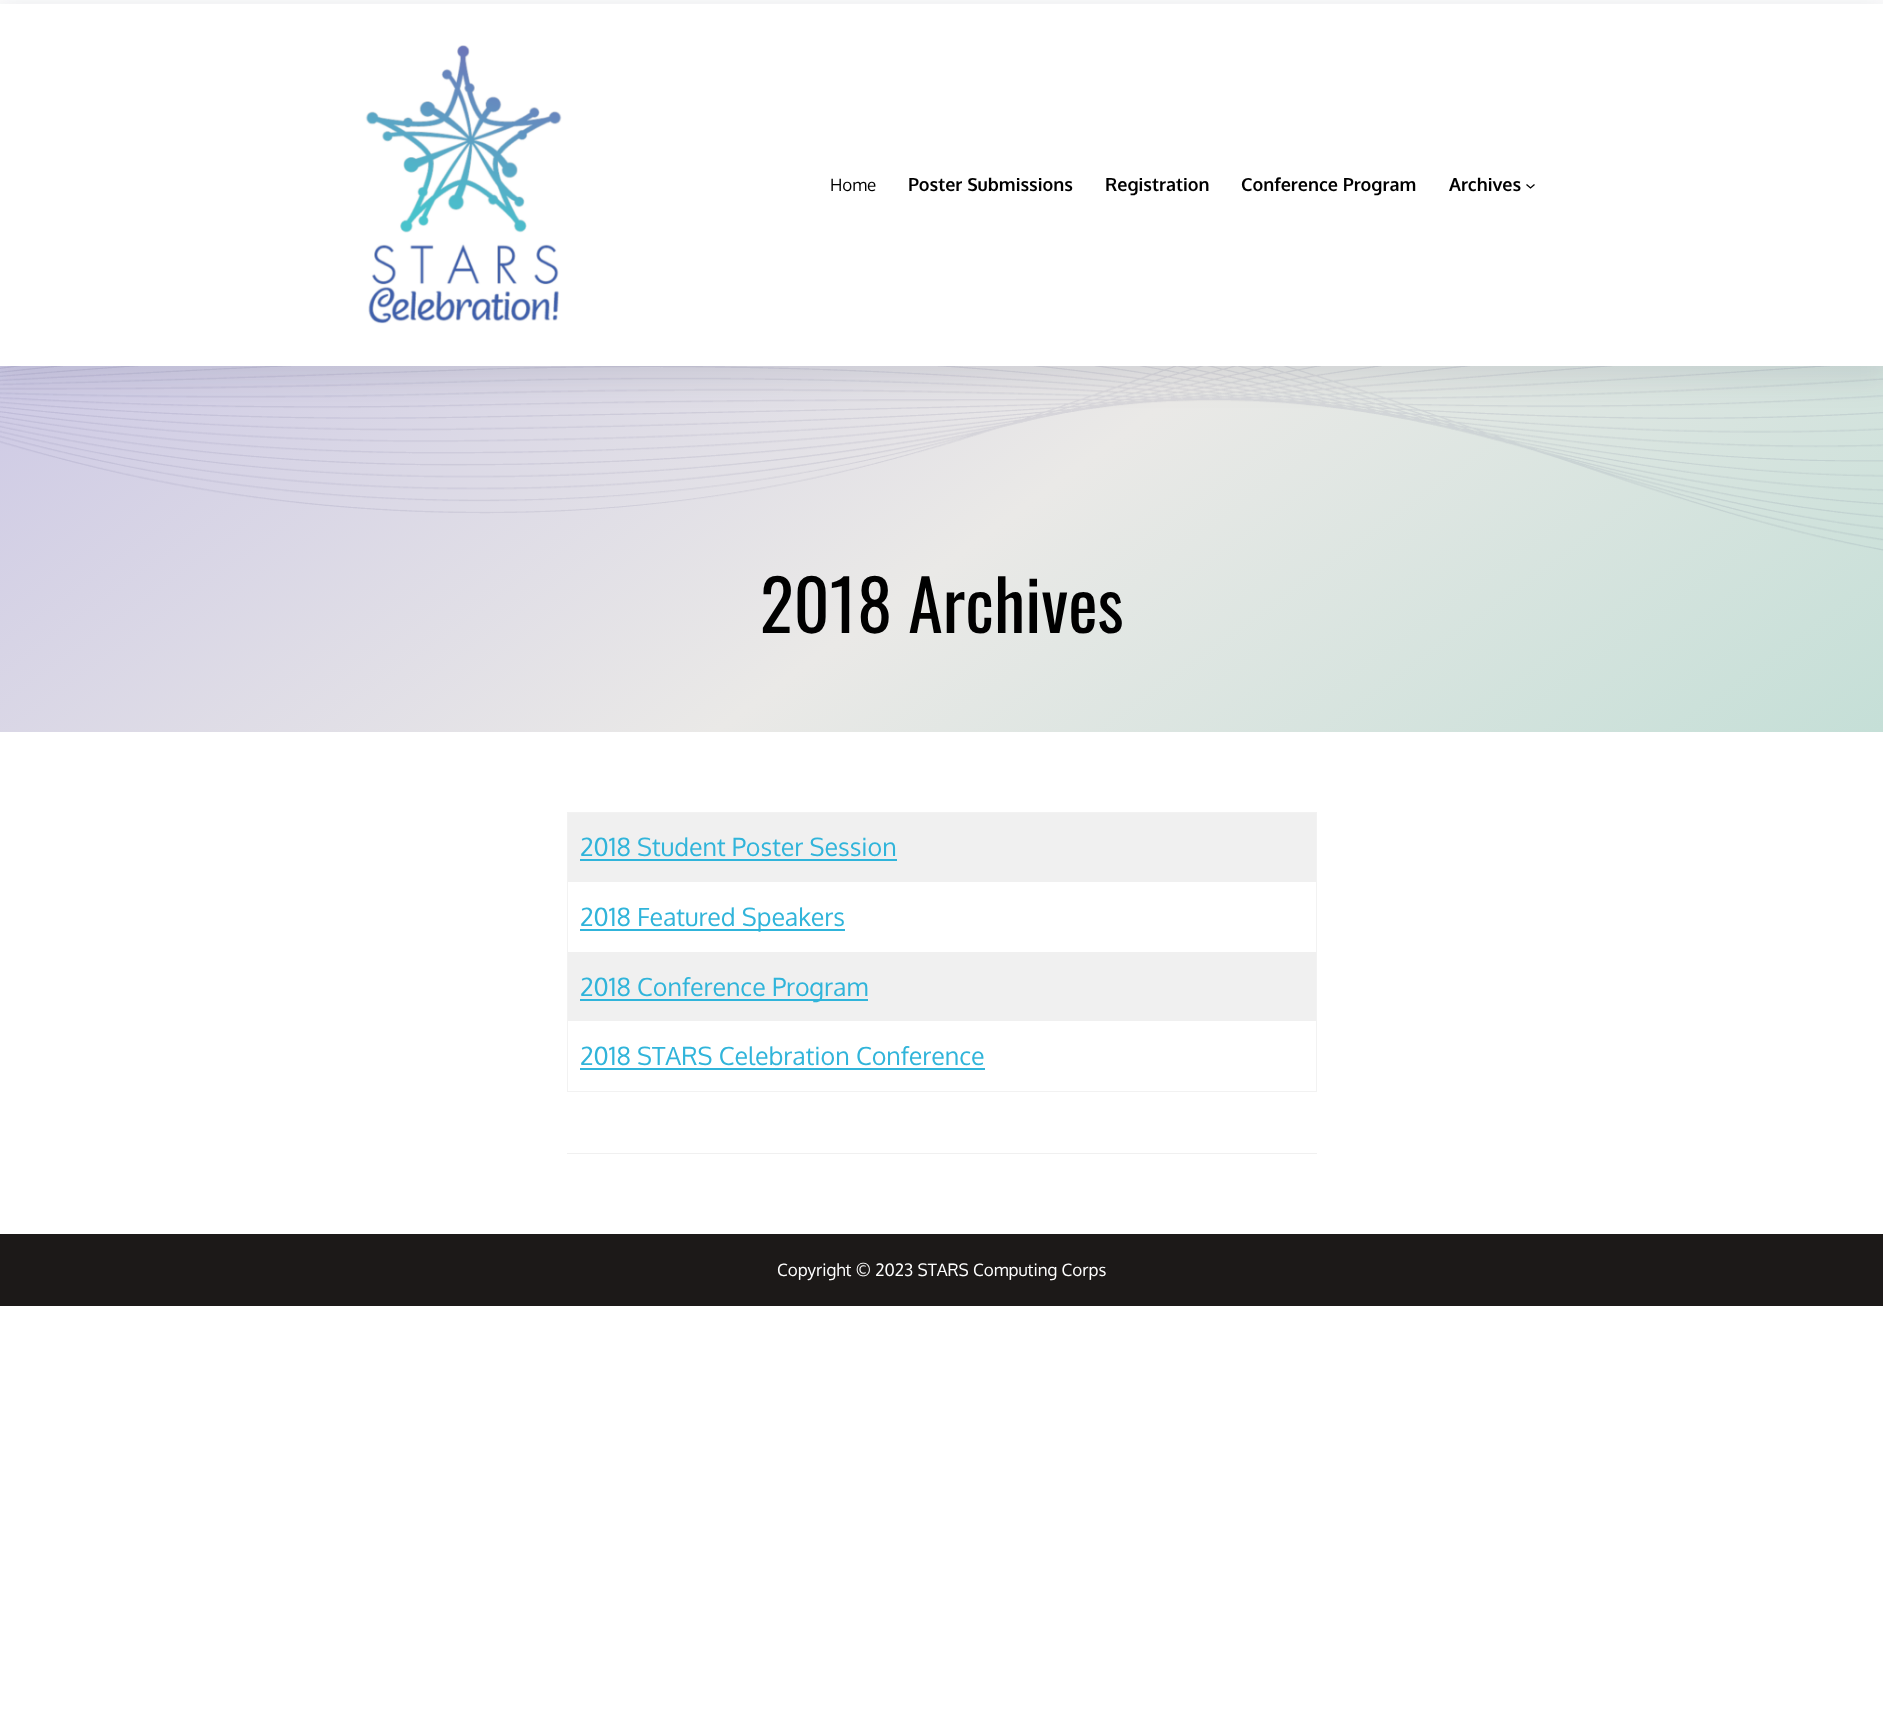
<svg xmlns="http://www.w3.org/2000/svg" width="1883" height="1728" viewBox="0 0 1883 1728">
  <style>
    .t1 { font: 17px Oxygen; fill: #000; }
    .t2 { font: bold 18px Oxygen; fill: #000; }
    .t3 { font: 70px Oswald; fill: #000; }
    .t4 { font: 25px Oxygen; fill: #30b4da; }
    .t5 { font: 17px Oxygen; fill: #fff; }
  </style>
  <defs>
    <linearGradient id="g1" gradientUnits="userSpaceOnUse" x1="529" y1="-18" x2="1354" y2="1116"><stop offset="0" stop-color="#cecae5"/><stop offset="0.51" stop-color="#eae9e7"/><stop offset="1" stop-color="#c5dfd7"/></linearGradient>
    <clipPath id="clip1"><path d="M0 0H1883V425H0ZM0 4H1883V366H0Z" clip-rule="evenodd"/></clipPath>
  </defs>
  <rect width="100%" height="100%" fill="#fff"/>
  <rect x="0" y="366" width="1883" height="366" fill="url(#g1)"/>
  <image x="0" y="366" width="1883" height="185" href="images/2.png"/>
  <g clip-path="url(#clip1)">
    <rect x="-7" y="3" width="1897" height="376" fill="#2125471a" filter="blur(15px)"/>
  </g>
  <image x="365" y="45" width="197" height="279" href="images/1.png"/>
  <text x="830" y="191" class="t1">Home</text>
  <text x="908" y="191" class="t2">Poster Submissions</text>
  <text x="1105" y="191" class="t2">Registration</text>
  <text x="1241" y="191" class="t2">Conference Program</text>
  <text x="1449" y="191" class="t2">Archives</text>
  <path d="M1526.5 184.5L1530.5 188L1534.5 184.5" fill="none" stroke="#000" stroke-width="1.3"/>
  <text x="760" y="633" class="t3">2018 Archives</text>
  <rect x="567" y="1153" width="750" height="1" fill="#f0f0f0"/>
  <rect x="567" y="812" width="750" height="1" fill="#f2f2f2"/>
  <rect x="1316" y="812" width="1" height="280" fill="#f2f2f2"/>
  <rect x="567" y="1091" width="750" height="1" fill="#f2f2f2"/>
  <rect x="567" y="812" width="1" height="280" fill="#f2f2f2"/>
  <rect x="568" y="813" width="748" height="69" fill="#f0f0f0"/>
  <text x="580" y="856" class="t4">2018 Student Poster Session</text>
  <rect x="580" y="859" width="317" height="2" fill="#30b4da"/>
  <rect x="580" y="929" width="265" height="2" fill="#30b4da"/>
  <text x="580" y="926" class="t4">2018 Featured Speakers</text>
  <rect x="568" y="952" width="748" height="69" fill="#f0f0f0"/>
  <rect x="580" y="999" width="288" height="2" fill="#30b4da"/>
  <text x="580" y="996" class="t4">2018 Conference Program</text>
  <text x="580" y="1065" class="t4">2018 STARS Celebration Conference</text>
  <rect x="580" y="1068" width="405" height="2" fill="#30b4da"/>
  <rect x="0" y="1234" width="1883" height="72" fill="#1c1918"/>
  <text x="777" y="1276" class="t5">Copyright © 2023 STARS Computing Corps</text>
</svg>
